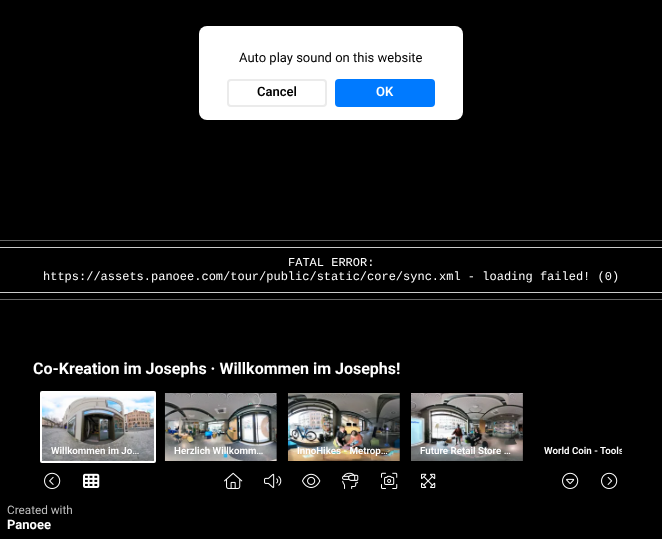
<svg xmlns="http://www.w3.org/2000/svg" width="662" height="539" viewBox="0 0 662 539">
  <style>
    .t1 { font: 13px Roboto; fill: #000; }
    .t2 { font: 600 13px Roboto; fill: #000; }
    .t3 { font: 600 13px Roboto; fill: #fff; }
    .t4 { font: 12px Liberation Mono; fill: #fff; }
    .t5 { font: bold 16px Roboto; fill: #fff; }
    .t6 { font: 600 9.75px Roboto; fill: #fff; }
    .t7 { font: 11.75px Roboto; fill: #bfbfbf; }
    .t8 { font: bold 13px Roboto; fill: #fff; }
  </style>
  <defs>
    <clipPath id="clip1"><rect x="534" y="442" width="88" height="14"/></clipPath>
  </defs>
  <rect width="100%" height="100%" fill="#000"/>
  <rect x="199" y="26" width="264" height="94" rx="8" fill="#fff"/>
  <text x="239" y="62" class="t1">Auto play sound on this website</text>
  <rect x="228" y="80" width="98" height="26" rx="3" fill="none" stroke="#ebebeb" stroke-width="2"/>
  <text x="257" y="96" class="t2">Cancel</text>
  <rect x="335" y="79" width="100" height="28" rx="4" fill="#007aff"/>
  <text x="376" y="96" class="t3">OK</text>
  <rect x="-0.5" y="240.5" width="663" height="59" fill="none" stroke="#666"/>
  <rect x="-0.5" y="247.5" width="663" height="45" fill="none" stroke="#ccc"/>
  <text x="288" y="266" class="t4">FATAL ERROR:</text>
  <text x="43" y="280" class="t4">https://assets.panoee.com/tour/public/static/core/sync.xml - loading failed! (0)</text>
  <text x="33" y="374" class="t5">Co-Kreation im Josephs · Willkommen im Josephs!</text>
  <rect x="41" y="392" width="114" height="70" rx="1" fill="none" stroke="#fff" stroke-width="2"/>
  <image x="42" y="393" width="112" height="68" href="images/1.png"/>
  <text x="51" y="454" class="t6">Willkommen im Jo…</text>
  <image x="164" y="393" width="113" height="68" href="images/2.png"/>
  <text x="174" y="454" class="t6">Herzlich Willkomm…</text>
  <image x="287" y="393" width="113" height="68" href="images/3.png"/>
  <text x="297" y="454" class="t6">InnoHikes - Metrop…</text>
  <image x="411" y="393" width="112" height="68" href="images/4.png"/>
  <text x="420" y="454" class="t6">Future Retail Store …</text>
  <g clip-path="url(#clip1)">
    <text x="544" y="454" class="t6">World Coin - Tools</text>
  </g>
  <image x="44" y="472" width="17" height="17" href="images/5.png"/>
  <image x="83" y="473" width="17" height="15" href="images/6.png"/>
  <image x="224" y="472" width="19" height="17" href="images/7.png"/>
  <image x="264" y="473" width="18" height="15" href="images/8.png"/>
  <image x="302" y="473" width="19" height="15" href="images/9.png"/>
  <image x="342" y="472" width="17" height="17" href="images/10.png"/>
  <image x="381" y="472" width="17" height="17" href="images/11.png"/>
  <image x="421" y="473" width="15" height="15" href="images/12.png"/>
  <image x="562" y="472" width="17" height="17" href="images/13.png"/>
  <image x="601" y="472" width="17" height="17" href="images/14.png"/>
  <text x="7" y="514" class="t7">Created with</text>
  <text x="7" y="529" class="t8">Panoee</text>
</svg>
